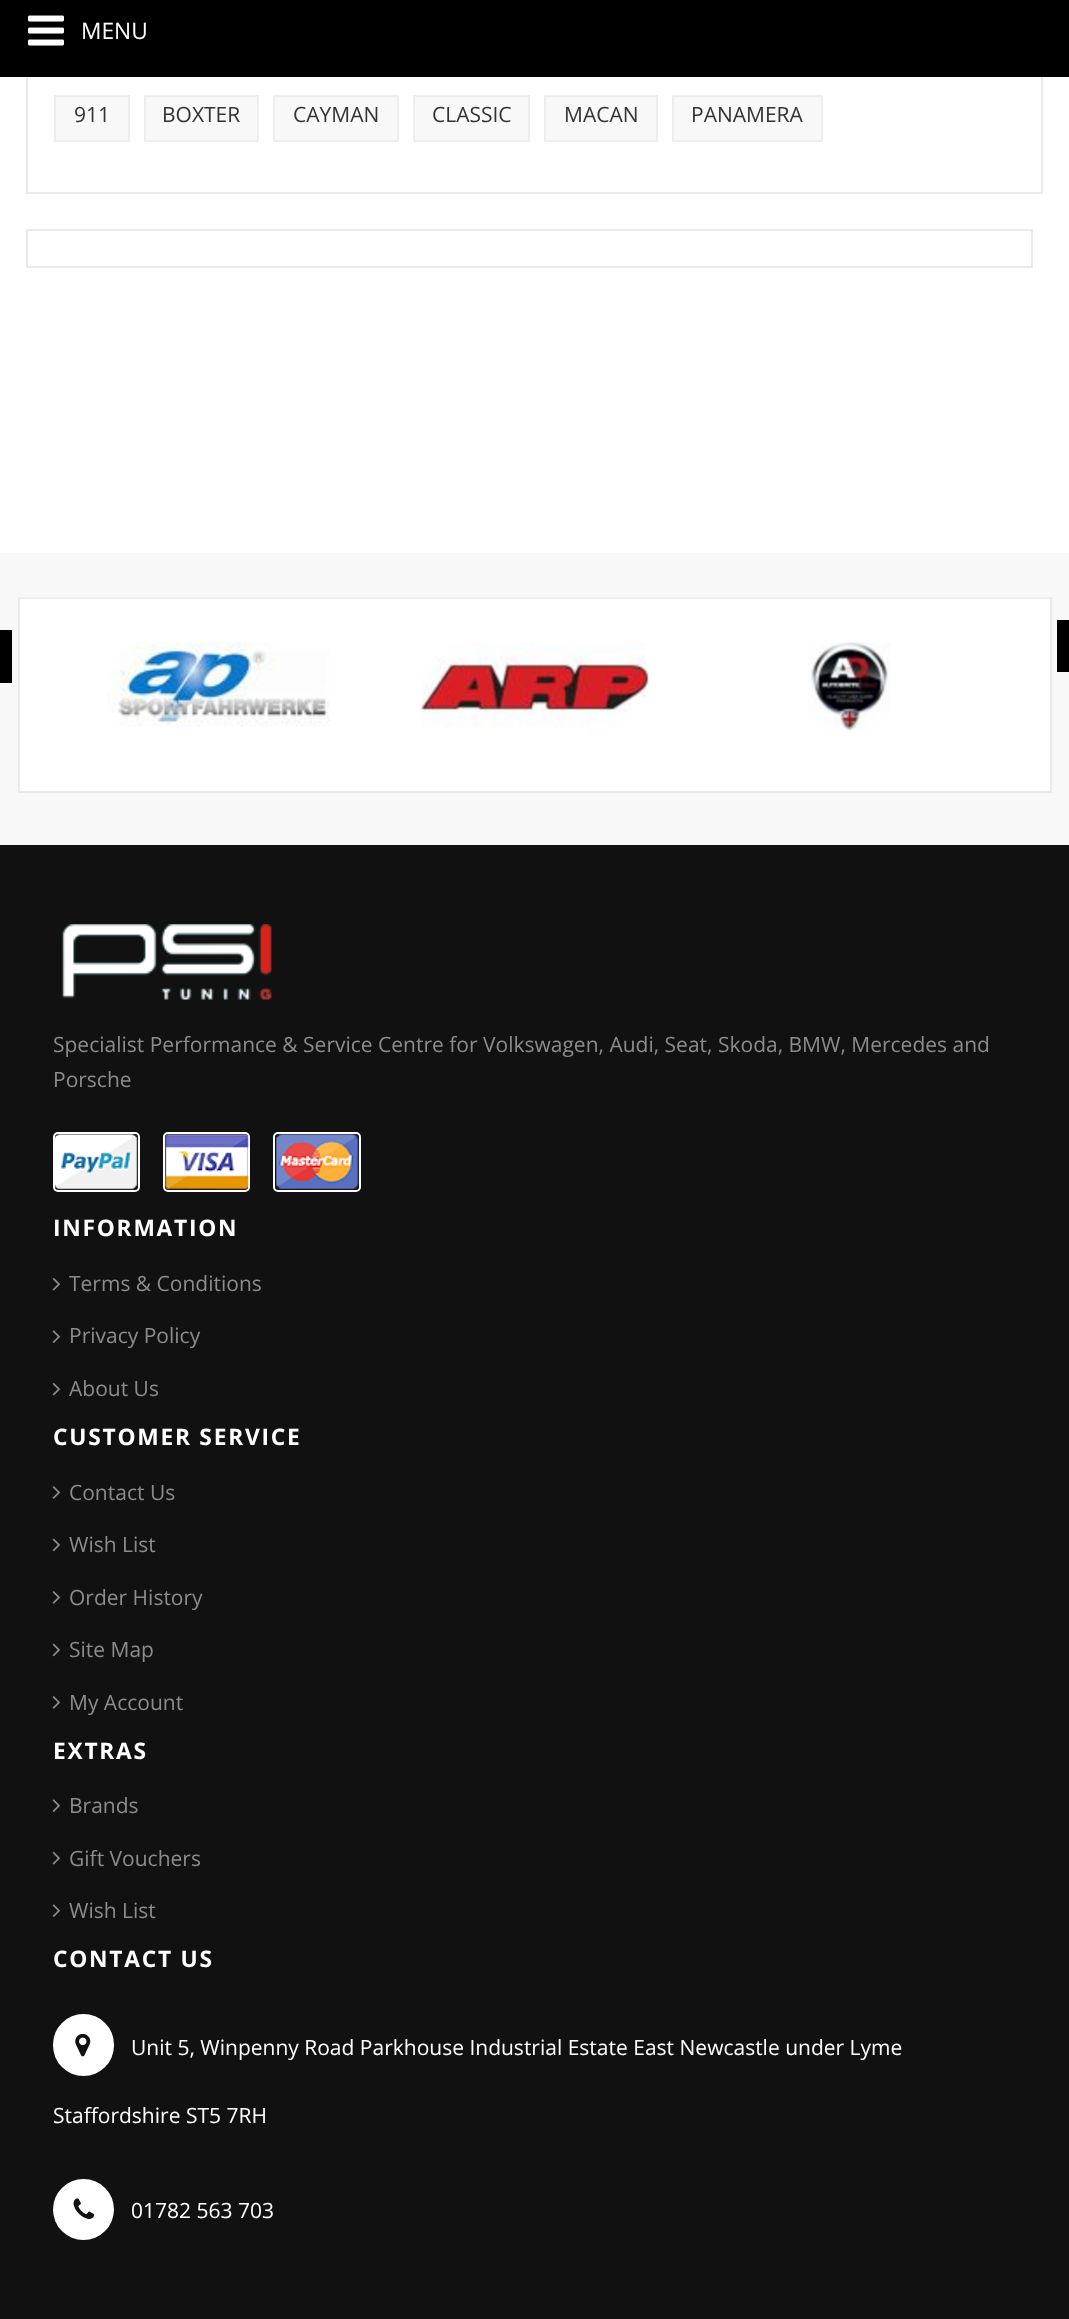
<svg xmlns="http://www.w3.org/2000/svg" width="1069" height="2319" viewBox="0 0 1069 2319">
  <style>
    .t1 { font: 22.75px Open Sans; fill: #fff; }
    .t2 { font: 21px Open Sans; fill: #333; }
    .t3 { font: 21px Open Sans; fill: #8c8c8c; }
    .t4 { font: bold 22.75px Open Sans; letter-spacing: 1.75px; fill: #fff; }
    .t5 { font: 21px Open Sans; fill: #fff; }
  </style>
  <rect width="100%" height="100%" fill="#fff"/>
  <rect x="27" y="13" width="1015" height="180" fill="none" stroke="#eaeaea" stroke-width="2"/>
  <rect x="0" y="0" width="1069" height="77" fill="#000"/>
  <image x="28" y="15" width="36" height="31" href="images/1.png"/>
  <text x="81" y="39" class="t1">MENU</text>
  <rect x="55" y="96" width="74" height="45" fill="#f8f8f8" stroke="#eee" stroke-width="2"/>
  <text x="74" y="122" class="t2">911</text>
  <rect x="145" y="96" width="113" height="45" fill="#f8f8f8" stroke="#eee" stroke-width="2"/>
  <text x="162" y="122" class="t2">BOXTER</text>
  <rect x="274" y="96" width="124" height="45" fill="#f8f8f8" stroke="#eee" stroke-width="2"/>
  <text x="293" y="122" class="t2">CAYMAN</text>
  <rect x="414" y="96" width="115" height="45" fill="#f8f8f8" stroke="#eee" stroke-width="2"/>
  <text x="432" y="122" class="t2">CLASSIC</text>
  <rect x="545" y="96" width="112" height="45" fill="#f8f8f8" stroke="#eee" stroke-width="2"/>
  <text x="564" y="122" class="t2">MACAN</text>
  <rect x="673" y="96" width="149" height="45" fill="#f8f8f8" stroke="#eee" stroke-width="2"/>
  <text x="691" y="122" class="t2">PANAMERA</text>
  <rect x="27" y="230" width="1005" height="37" fill="none" stroke="#eaeaea" stroke-width="2"/>
  <rect x="0" y="845" width="1069" height="1474" fill="#111"/>
  <rect x="0" y="553" width="1069" height="292" fill="#f8f8f8"/>
  <rect x="20" y="599" width="1030" height="192" fill="#fff"/>
  <rect x="18" y="597" width="1034" height="2" fill="#eee"/>
  <rect x="1050" y="597" width="2" height="196" fill="#eaeaea"/>
  <rect x="18" y="791" width="1034" height="2" fill="#eaeaea"/>
  <rect x="18" y="597" width="2" height="196" fill="#eaeaea"/>
  <rect x="0" y="630" width="12" height="53" fill="#000"/>
  <rect x="1057" y="620" width="12" height="52" fill="#000"/>
  <image x="107" y="642" width="224" height="85" href="images/2.png"/>
  <image x="421" y="642" width="228" height="86" href="images/3.png"/>
  <image x="808" y="642" width="83" height="88" href="images/4.png"/>
  <image x="62" y="924" width="210" height="76" href="images/5.png"/>
  <text x="53" y="1052" class="t3">Specialist Performance &amp; Service Centre for Volkswagen, Audi, Seat, Skoda, BMW, Mercedes and</text>
  <text x="53" y="1087" class="t3">Porsche</text>
  <rect x="54" y="1133" width="85" height="58" rx="4" fill="none" stroke="#fff" stroke-width="2"/>
  <rect x="164" y="1133" width="85" height="58" rx="4" fill="none" stroke="#fff" stroke-width="2"/>
  <rect x="274" y="1133" width="86" height="58" rx="4" fill="none" stroke="#fff" stroke-width="2"/>
  <image x="55" y="1134" width="83" height="56" href="images/6.png"/>
  <image x="164" y="1134" width="85" height="56" href="images/7.png"/>
  <image x="275" y="1134" width="84" height="56" href="images/8.png"/>
  <text x="53" y="1236" class="t4">INFORMATION</text>
  <image x="52" y="1277" width="8" height="14" href="images/9.png"/>
  <text x="69" y="1291" class="t3">Terms &amp; Conditions</text>
  <image x="52" y="1330" width="8" height="13" href="images/10.png"/>
  <text x="69" y="1343" class="t3">Privacy Policy</text>
  <image x="52" y="1382" width="8" height="14" href="images/9.png"/>
  <text x="69" y="1396" class="t3">About Us</text>
  <text x="53" y="1445" class="t4">CUSTOMER SERVICE</text>
  <image x="52" y="1486" width="8" height="13" href="images/11.png"/>
  <text x="69" y="1500" class="t3">Contact Us</text>
  <image x="52" y="1538" width="8" height="14" href="images/12.png"/>
  <text x="69" y="1552" class="t3">Wish List</text>
  <image x="52" y="1591" width="8" height="13" href="images/11.png"/>
  <text x="69" y="1605" class="t3">Order History</text>
  <image x="52" y="1643" width="8" height="14" href="images/12.png"/>
  <text x="69" y="1657" class="t3">Site Map</text>
  <image x="52" y="1696" width="8" height="13" href="images/11.png"/>
  <text x="69" y="1710" class="t3">My Account</text>
  <text x="53" y="1759" class="t4">EXTRAS</text>
  <image x="52" y="1799" width="8" height="13" href="images/10.png"/>
  <text x="69" y="1813" class="t3">Brands</text>
  <image x="52" y="1851" width="8" height="14" href="images/9.png"/>
  <text x="69" y="1866" class="t3">Gift Vouchers</text>
  <image x="52" y="1904" width="8" height="13" href="images/10.png"/>
  <text x="69" y="1918" class="t3">Wish List</text>
  <text x="53" y="1967" class="t4">CONTACT US</text>
  <rect x="53" y="2014" width="61" height="62" rx="30.5" fill="#fff"/>
  <image x="75" y="2033" width="16" height="24" href="images/13.png"/>
  <text x="131" y="2055" class="t5">Unit 5, Winpenny Road Parkhouse Industrial Estate East Newcastle under Lyme</text>
  <text x="53" y="2123" class="t5">Staffordshire ST5 7RH</text>
  <circle cx="83.5" cy="2209.5" r="30.5" fill="#fff"/>
  <image x="73" y="2198" width="22" height="21" href="images/14.png"/>
  <text x="131" y="2218" class="t5">01782 563 703</text>
</svg>
